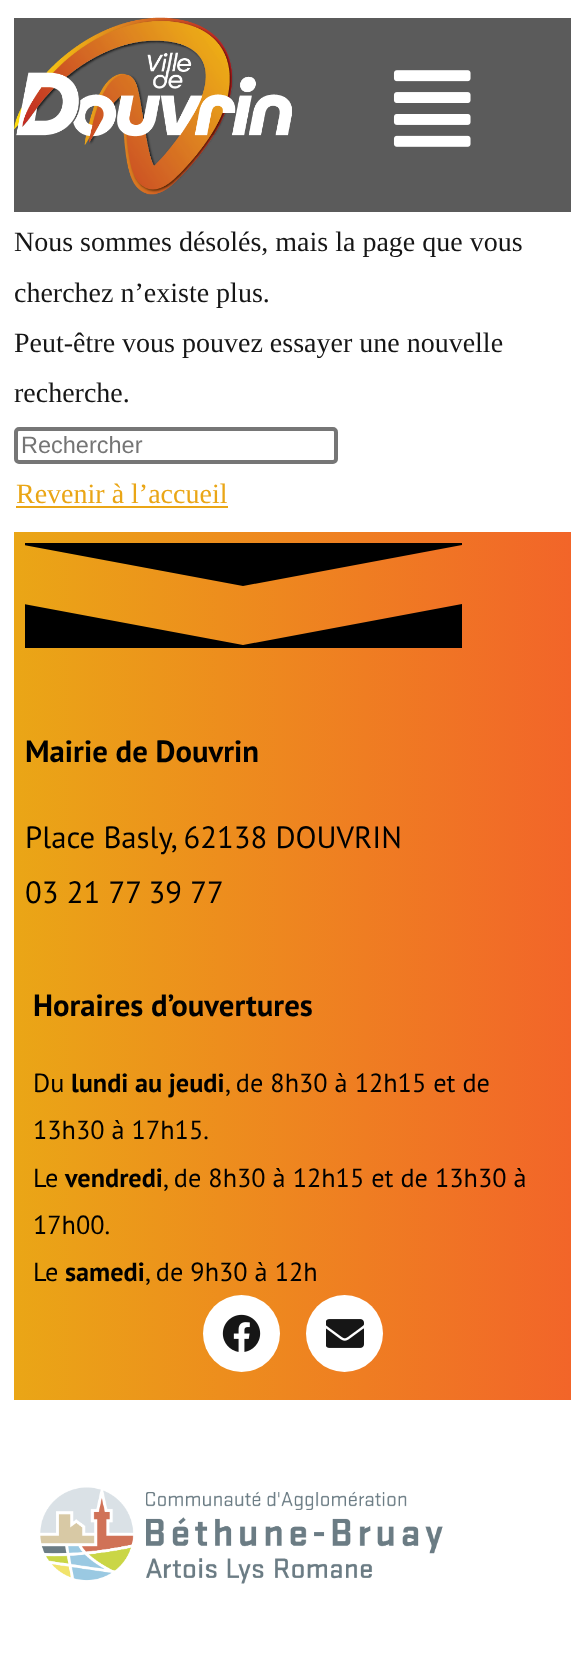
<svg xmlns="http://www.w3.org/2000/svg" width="583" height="1678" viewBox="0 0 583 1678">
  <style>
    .t1 { font: 28px Liberation Serif; fill: #161616; }
    .t2 { font: 23.5px Liberation Sans; fill: #757575; }
    .t3 { font: 28px Liberation Serif; fill: #eaa616; }
    .t4 { font: bold 30.75px PT Sans; fill: #000; }
    .t5 { font: 30.75px PT Sans; fill: #000; }
    .t6 { font: 26.25px PT Sans; fill: #000; }
    .t7 { font: bold 26.25px PT Sans; fill: #000; }
  </style>
  <defs>
    <linearGradient id="g1" gradientUnits="userSpaceOnUse" x1="14" y1="966" x2="571" y2="966"><stop offset="0" stop-color="#eaa616"/><stop offset="1" stop-color="#f26529"/></linearGradient>
    <clipPath id="clip1"><rect x="25" y="543" width="437" height="43"/></clipPath>
    <clipPath id="clip2"><rect x="25" y="604" width="437" height="44"/></clipPath>
  </defs>
  <rect width="100%" height="100%" fill="#fff"/>
  <rect x="14" y="18" width="278" height="194" fill="#161616b3"/>
  <image x="14" y="17" width="278" height="178" href="images/1.png"/>
  <rect x="292" y="18" width="279" height="194" fill="#161616b3"/>
  <image x="393" y="70" width="78" height="77" href="images/2.png"/>
  <text x="14" y="251" class="t1">Nous sommes désolés, mais la page que vous</text>
  <text x="14" y="302" class="t1">cherchez n’existe plus.</text>
  <text x="14" y="352" class="t1">Peut-être vous pouvez essayer une nouvelle</text>
  <text x="14" y="402" class="t1">recherche.</text>
  <rect x="16" y="429" width="320" height="33" rx="3" fill="none" stroke="#767676" stroke-width="4"/>
  <text x="21" y="453" class="t2">Rechercher</text>
  <text x="16" y="503" class="t3">Revenir à l’accueil</text>
  <rect x="16" y="506" width="212" height="2" fill="#eaa616"/>
  <rect x="14" y="532" width="557" height="868" fill="url(#g1)"/>
  <g clip-path="url(#clip1)">
    <path d="M243 586L24 545V542H462V545Z" fill="#000"/>
  </g>
  <g clip-path="url(#clip2)">
    <path d="M243 645L24 604V648H462V604Z" fill="#000"/>
  </g>
  <text x="25" y="762" class="t4">Mairie de Douvrin</text>
  <text x="25" y="848" class="t5">Place Basly, 62138 DOUVRIN</text>
  <text x="25" y="903" class="t5">03 21 77 39 77</text>
  <text x="33" y="1016" class="t4">Horaires d’ouvertures</text>
  <text x="33" y="1092" class="t6">Du</text>
  <text x="71" y="1092" class="t7">lundi au jeudi</text>
  <text x="225" y="1092" class="t6">, de 8h30 à 12h15 et de</text>
  <text x="33" y="1139" class="t6">13h30 à 17h15.</text>
  <text x="33" y="1187" class="t6">Le</text>
  <text x="65" y="1187" class="t7">vendredi</text>
  <text x="163" y="1187" class="t6">, de 8h30 à 12h15 et de 13h30 à</text>
  <text x="33" y="1234" class="t6">17h00.</text>
  <text x="33" y="1281" class="t6">Le</text>
  <text x="65" y="1281" class="t7">samedi</text>
  <text x="145" y="1281" class="t6">, de 9h30 à 12h</text>
  <circle cx="241.5" cy="1333.5" r="38.5" fill="#fff"/>
  <image x="222" y="1314" width="39" height="38" href="images/3.png"/>
  <circle cx="344.5" cy="1333.5" r="38.5" fill="#fff"/>
  <image x="326" y="1319" width="38" height="29" href="images/4.png"/>
  <image x="40" y="1487" width="403" height="97" href="images/5.png"/>
</svg>
